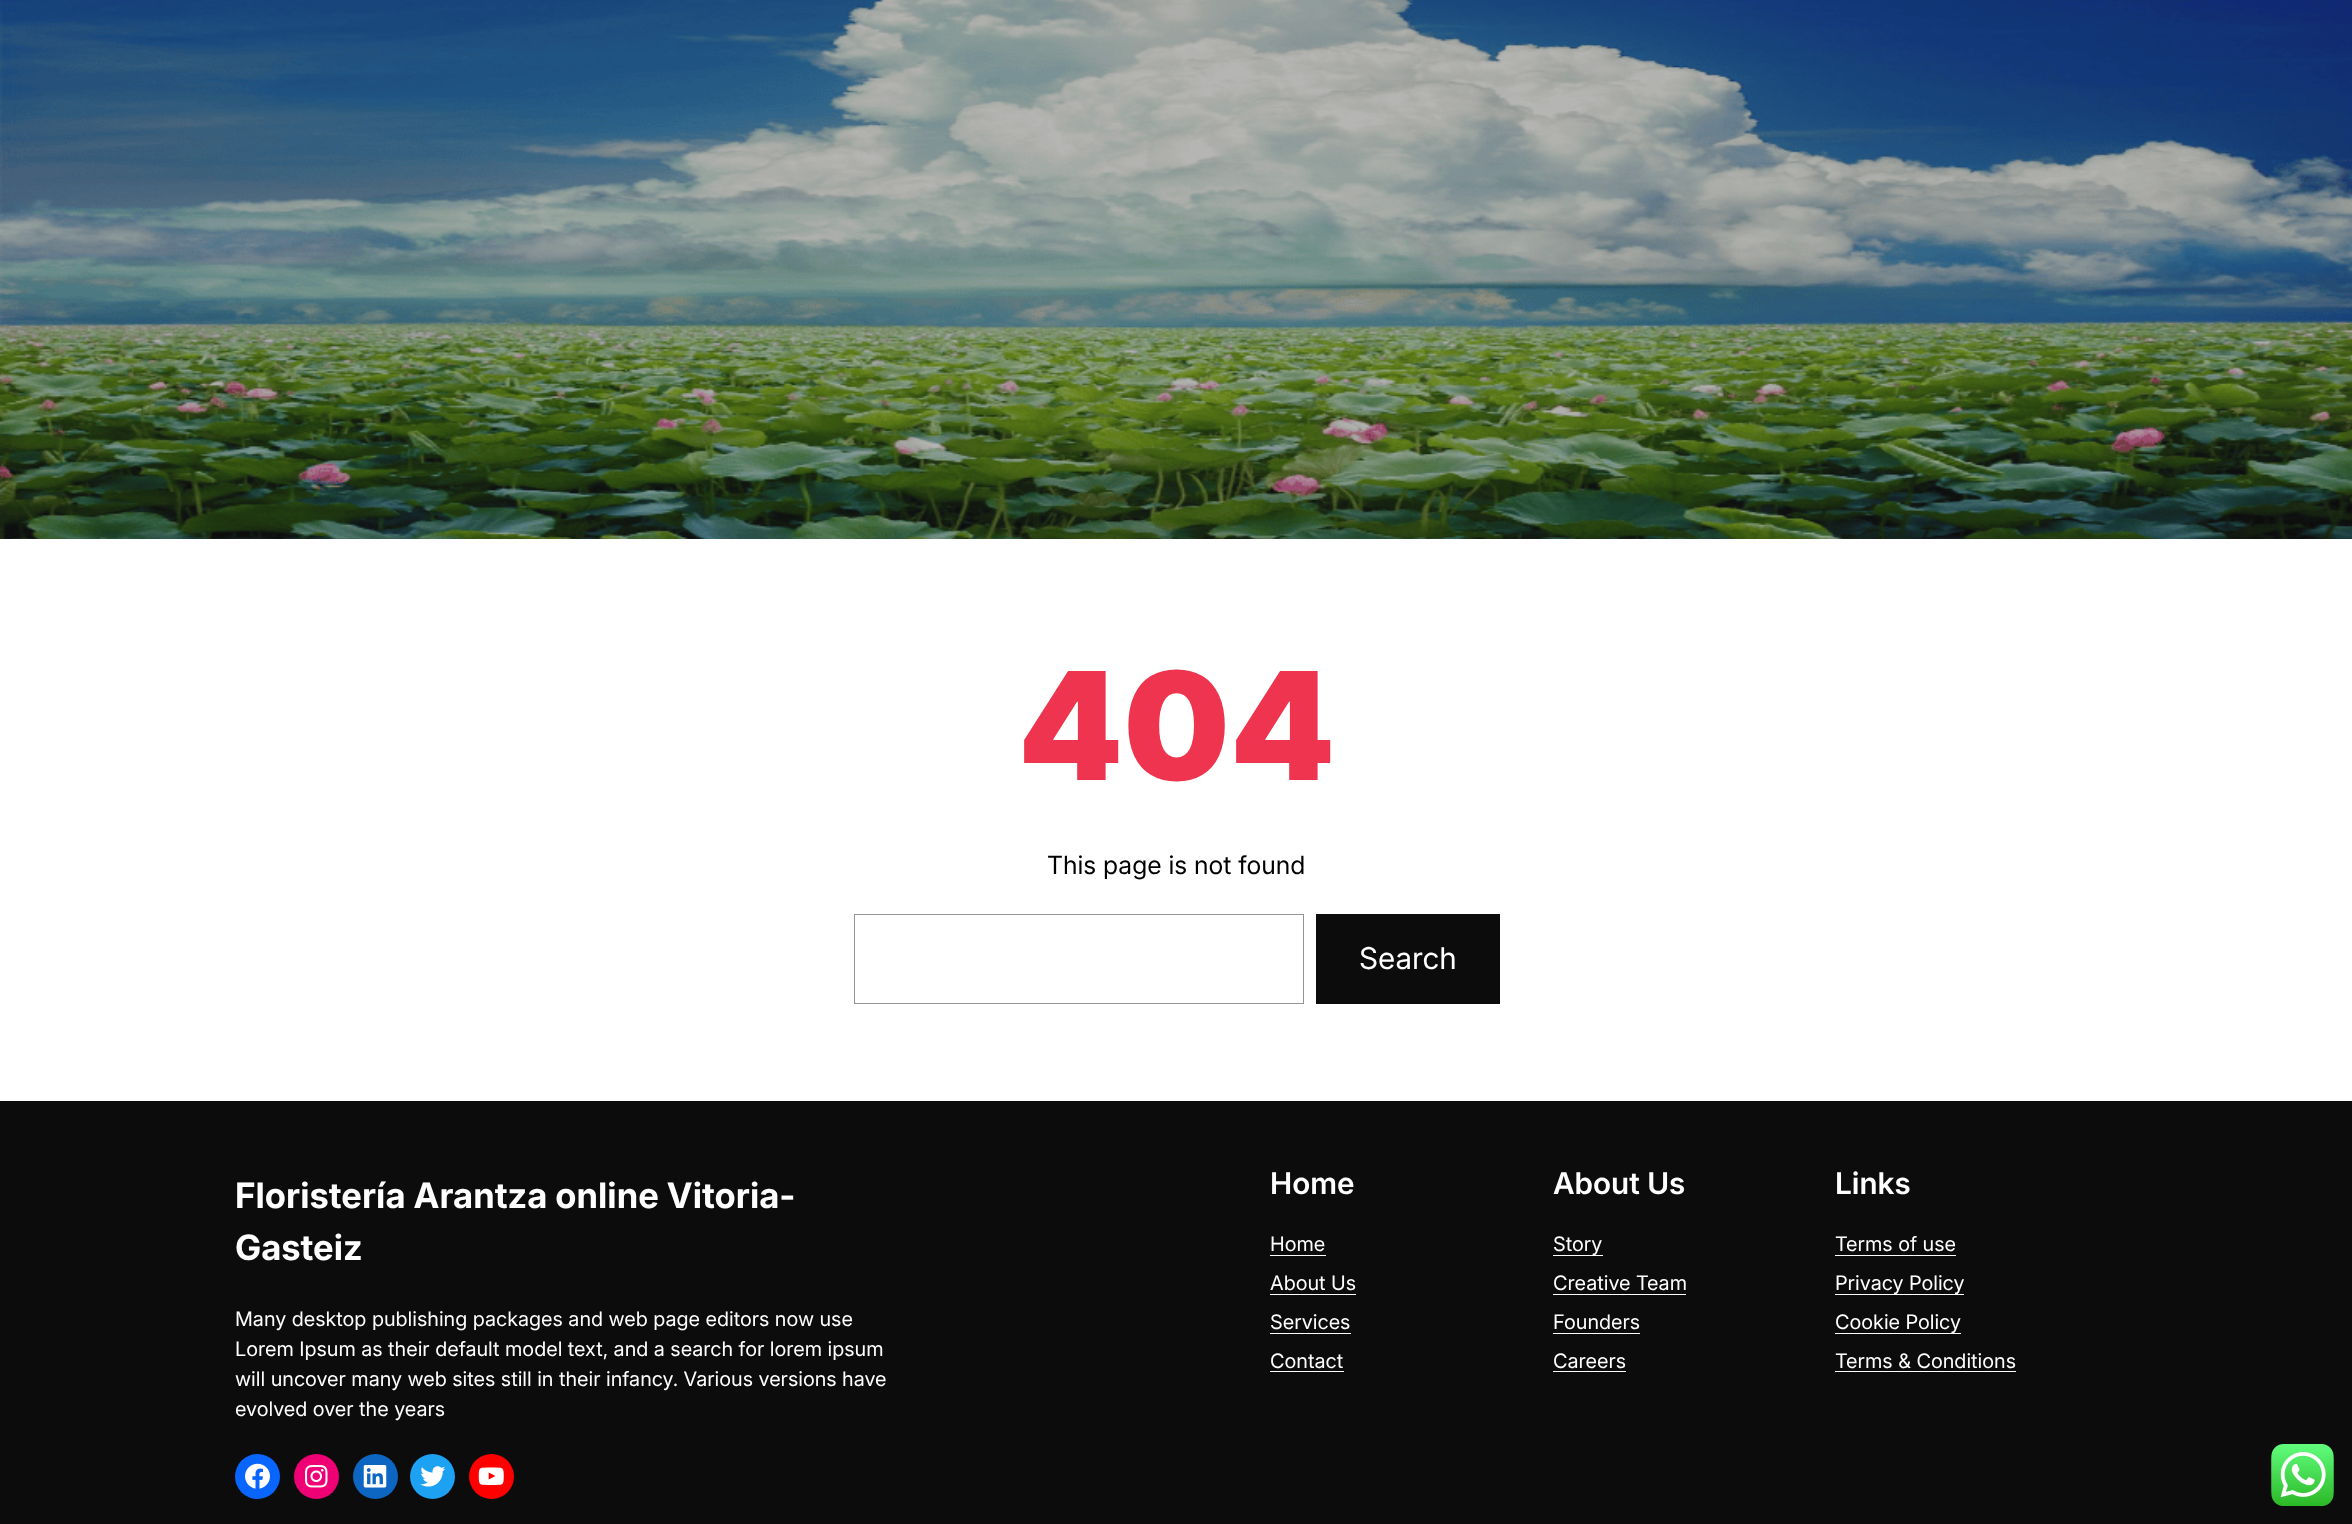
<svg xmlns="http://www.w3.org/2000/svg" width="2352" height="1524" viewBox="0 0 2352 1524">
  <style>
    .t1 { font: 900 150px Inter; fill: #ee344e; }
    .t2 { font: 25px Inter; fill: #000; }
    .t3 { font: 30px Inter; fill: #fff; }
    .t4 { font: bold 35px Inter; fill: #fff; }
    .t5 { font: 20px Inter; fill: #fff; }
    .t6 { font: 600 30px Inter; fill: #fff; }
  </style>
  <rect width="100%" height="100%" fill="#fff"/>
  <image x="0" y="0" width="2352" height="539" href="images/1.png"/>
  <text x="1018" y="780" class="t1">404</text>
  <text x="1047" y="874" class="t2">This page is not found</text>
  <rect x="854.5" y="914.5" width="449" height="89" fill="none" stroke="#949494"/>
  <rect x="1316" y="914" width="184" height="90" fill="#0d0c0c"/>
  <text x="1359" y="969" class="t3">Search</text>
  <rect x="0" y="1101" width="2352" height="423" fill="#0d0c0c"/>
  <text x="235" y="1208" class="t4">Floristería Arantza online Vitoria-</text>
  <text x="235" y="1260" class="t4">Gasteiz</text>
  <text x="235" y="1326" class="t5">Many desktop publishing packages and web page editors now use</text>
  <text x="235" y="1356" class="t5">Lorem Ipsum as their default model text, and a search for lorem ipsum</text>
  <text x="235" y="1386" class="t5">will uncover many web sites still in their infancy. Various versions have</text>
  <text x="235" y="1416" class="t5">evolved over the years</text>
  <circle cx="257.5" cy="1476.5" r="22.5" fill="#0866ff"/>
  <image x="245" y="1463" width="25" height="26" href="images/2.png"/>
  <circle cx="316.5" cy="1476.5" r="22.5" fill="#f00075"/>
  <image x="305" y="1465" width="23" height="23" href="images/3.png"/>
  <circle cx="375.5" cy="1476.5" r="22.5" fill="#0d66c2"/>
  <image x="363" y="1465" width="24" height="23" href="images/4.png"/>
  <circle cx="432.5" cy="1476.5" r="22.5" fill="#1da1f2"/>
  <image x="420" y="1466" width="26" height="21" href="images/5.png"/>
  <circle cx="491.5" cy="1476.5" r="22.5" fill="#f00"/>
  <image x="478" y="1467" width="26" height="19" href="images/6.png"/>
  <text x="1270" y="1194" class="t6">Home</text>
  <text x="1270" y="1251" class="t5">Home</text>
  <rect x="1270" y="1255" width="56" height="1" fill="#fff"/>
  <text x="1270" y="1290" class="t5">About Us</text>
  <rect x="1270" y="1294" width="86" height="1" fill="#fff"/>
  <text x="1270" y="1329" class="t5">Services</text>
  <rect x="1270" y="1333" width="81" height="1" fill="#fff"/>
  <text x="1270" y="1368" class="t5">Contact</text>
  <rect x="1270" y="1371" width="74" height="1" fill="#fff"/>
  <text x="1553" y="1194" class="t6">About Us</text>
  <rect x="1553" y="1255" width="50" height="1" fill="#fff"/>
  <text x="1553" y="1251" class="t5">Story</text>
  <text x="1553" y="1290" class="t5">Creative Team</text>
  <rect x="1553" y="1294" width="133" height="1" fill="#fff"/>
  <text x="1553" y="1329" class="t5">Founders</text>
  <rect x="1553" y="1333" width="87" height="1" fill="#fff"/>
  <text x="1553" y="1368" class="t5">Careers</text>
  <rect x="1553" y="1371" width="73" height="1" fill="#fff"/>
  <text x="1835" y="1194" class="t6">Links</text>
  <text x="1835" y="1251" class="t5">Terms of use</text>
  <rect x="1835" y="1255" width="121" height="1" fill="#fff"/>
  <rect x="1835" y="1294" width="129" height="1" fill="#fff"/>
  <text x="1835" y="1290" class="t5">Privacy Policy</text>
  <rect x="1835" y="1333" width="126" height="1" fill="#fff"/>
  <text x="1835" y="1329" class="t5">Cookie Policy</text>
  <text x="1835" y="1368" class="t5">Terms &amp; Conditions</text>
  <rect x="1835" y="1371" width="181" height="1" fill="#fff"/>
  <image x="2271" y="1444" width="63" height="62" href="images/7.png"/>
</svg>
